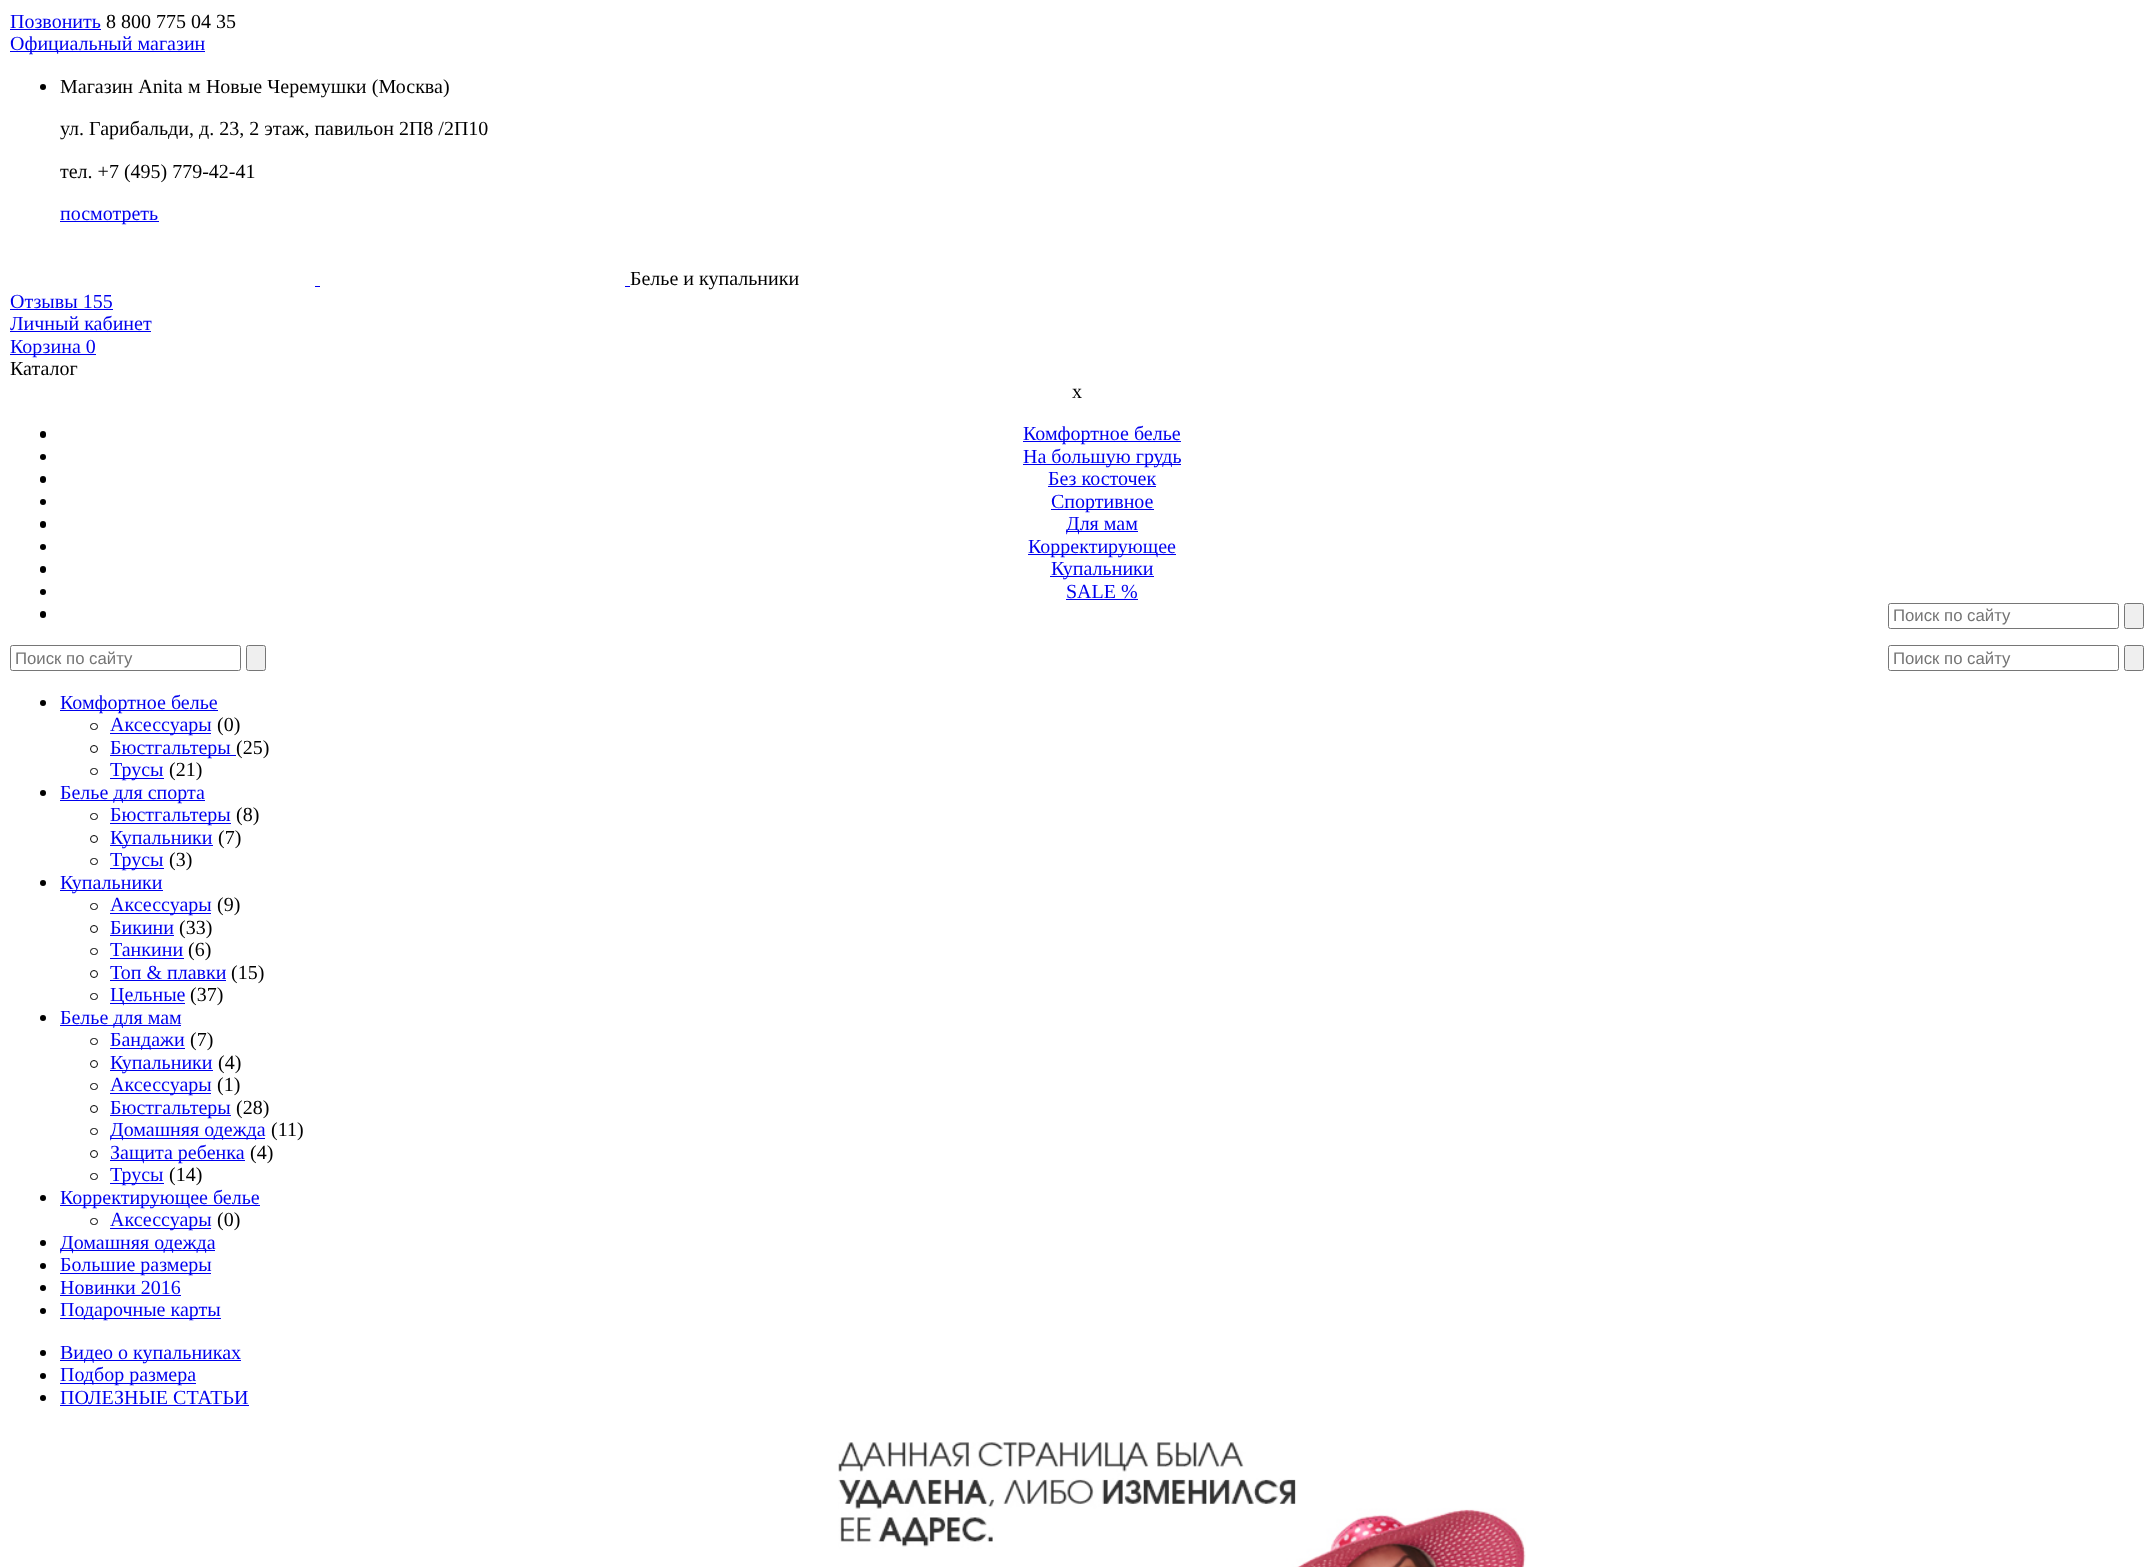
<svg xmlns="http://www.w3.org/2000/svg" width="2153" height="1567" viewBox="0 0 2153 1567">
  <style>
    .t1 { font: 20px Liberation Serif; fill: #00e; }
    .t2 { font: 20px Liberation Serif; fill: #000; }
    .t3 { font: 16.75px Liberation Sans; fill: #757575; }
  </style>
  <rect width="100%" height="100%" fill="#fff"/>
  <text x="10" y="28" class="t1">Позвонить</text>
  <rect x="10" y="29" width="91" height="1" fill="#00e"/>
  <text x="106" y="28" class="t2">8 800 775 04 35</text>
  <rect x="10" y="51" width="195" height="1" fill="#00e"/>
  <text x="10" y="50" class="t1">Официальный магазин</text>
  <circle cx="43" cy="87" r="3" fill="#000"/>
  <text x="60" y="93" word-spacing="0.25" class="t2">Магазин Anita м Новые Черемушки (Москва)</text>
  <text x="60" y="135" class="t2">ул. Гарибальди, д. 23, 2 этаж, павильон 2П8 /2П10</text>
  <text x="60" y="178" class="t2">тел. +7 (495) 779-42-41</text>
  <rect x="60" y="221" width="99" height="1" fill="#00e"/>
  <text x="60" y="220" class="t1">посмотреть</text>
  <rect x="315" y="286" width="5" height="1" fill="#00e"/>
  <rect x="625" y="286" width="5" height="1" fill="#00e"/>
  <text x="630" y="285" class="t2">Белье и купальники</text>
  <text x="10" y="308" class="t1">Отзывы 155</text>
  <rect x="10" y="309" width="103" height="1" fill="#00e"/>
  <text x="10" y="330" class="t1">Личный кабинет</text>
  <rect x="10" y="331" width="141" height="1" fill="#00e"/>
  <rect x="10" y="354" width="86" height="1" fill="#00e"/>
  <text x="10" y="353" class="t1">Корзина 0</text>
  <text x="10" y="375" class="t2">Каталог</text>
  <text x="1072" y="398" class="t2">x</text>
  <rect x="40" y="431" width="6" height="7" rx="3" fill="#000"/>
  <rect x="1023" y="441" width="158" height="1" fill="#00e"/>
  <text x="1023" y="440" class="t1">Комфортное белье</text>
  <circle cx="43" cy="457" r="3" fill="#000"/>
  <rect x="1023" y="464" width="158" height="1" fill="#00e"/>
  <text x="1023" y="463" class="t1">На большую грудь</text>
  <rect x="40" y="476" width="6" height="7" rx="3" fill="#000"/>
  <text x="1048" y="485" class="t1">Без косточек</text>
  <rect x="1048" y="486" width="108" height="1" fill="#00e"/>
  <circle cx="43" cy="502" r="3" fill="#000"/>
  <rect x="1051" y="509" width="103" height="1" fill="#00e"/>
  <text x="1051" y="508" class="t1">Спортивное</text>
  <rect x="40" y="521" width="6" height="7" rx="3" fill="#000"/>
  <rect x="1066" y="531" width="72" height="1" fill="#00e"/>
  <text x="1066" y="530" class="t1">Для мам</text>
  <circle cx="43" cy="547" r="3" fill="#000"/>
  <rect x="1028" y="554" width="148" height="1" fill="#00e"/>
  <text x="1028" y="553" class="t1">Корректирующее</text>
  <rect x="40" y="566" width="6" height="7" rx="3" fill="#000"/>
  <rect x="1050" y="576" width="104" height="1" fill="#00e"/>
  <text x="1051" y="575" class="t1">Купальники</text>
  <circle cx="43" cy="592" r="3" fill="#000"/>
  <text x="1066" y="598" class="t1">SALE %</text>
  <rect x="1066" y="599" width="72" height="1" fill="#00e"/>
  <rect x="40" y="611" width="6" height="7" rx="3" fill="#000"/>
  <rect x="1888.5" y="603.5" width="230" height="25" rx="2" fill="none" stroke="#767676"/>
  <text x="1893" y="621" class="t3">Поиск по сайту</text>
  <rect x="2124.5" y="603.5" width="19" height="25" rx="2" fill="#efefef" stroke="#767676"/>
  <rect x="10.5" y="645.5" width="230" height="25" rx="2" fill="none" stroke="#767676"/>
  <text x="15" y="664" class="t3">Поиск по сайту</text>
  <rect x="246.5" y="645.5" width="19" height="25" rx="2" fill="#efefef" stroke="#767676"/>
  <circle cx="43" cy="703" r="3" fill="#000"/>
  <rect x="60" y="710" width="158" height="1" fill="#00e"/>
  <text x="60" y="709" class="t1">Комфортное белье</text>
  <rect x="90.5" y="723.5" width="7" height="6" rx="3" fill="none" stroke="#000"/>
  <rect x="110" y="733" width="101" height="1" fill="#00e"/>
  <text x="110" y="731" class="t1">Аксессуары</text>
  <text x="217" y="731" class="t2">(0)</text>
  <circle cx="94" cy="749" r="3.5" fill="none" stroke="#000"/>
  <rect x="110" y="755" width="126" height="1" fill="#00e"/>
  <text x="110" y="754" class="t1">Бюстгальтеры</text>
  <text x="236" y="754" class="t2">(25)</text>
  <rect x="90.5" y="768.5" width="7" height="6" rx="3" fill="none" stroke="#000"/>
  <rect x="110" y="778" width="54" height="1" fill="#00e"/>
  <text x="110" y="776" class="t1">Трусы</text>
  <text x="169" y="776" class="t2">(21)</text>
  <circle cx="43" cy="793" r="3" fill="#000"/>
  <rect x="60" y="800" width="145" height="1" fill="#00e"/>
  <text x="60" y="799" class="t1">Белье для спорта</text>
  <rect x="90.5" y="813.5" width="7" height="6" rx="3" fill="none" stroke="#000"/>
  <rect x="110" y="823" width="121" height="1" fill="#00e"/>
  <text x="110" y="821" class="t1">Бюстгальтеры</text>
  <text x="236" y="821" class="t2">(8)</text>
  <circle cx="94" cy="839" r="3.5" fill="none" stroke="#000"/>
  <rect x="110" y="845" width="103" height="1" fill="#00e"/>
  <text x="110" y="844" class="t1">Купальники</text>
  <text x="218" y="844" class="t2">(7)</text>
  <rect x="90.5" y="858.5" width="7" height="6" rx="3" fill="none" stroke="#000"/>
  <rect x="110" y="868" width="54" height="1" fill="#00e"/>
  <text x="110" y="866" class="t1">Трусы</text>
  <text x="169" y="866" class="t2">(3)</text>
  <circle cx="43" cy="883" r="3" fill="#000"/>
  <rect x="60" y="890" width="103" height="1" fill="#00e"/>
  <text x="60" y="889" class="t1">Купальники</text>
  <rect x="90.5" y="903.5" width="7" height="6" rx="3" fill="none" stroke="#000"/>
  <rect x="110" y="913" width="101" height="1" fill="#00e"/>
  <text x="110" y="911" class="t1">Аксессуары</text>
  <text x="217" y="911" class="t2">(9)</text>
  <circle cx="94" cy="929" r="3.5" fill="none" stroke="#000"/>
  <text x="110" y="934" class="t1">Бикини</text>
  <rect x="110" y="935" width="64" height="1" fill="#00e"/>
  <text x="179" y="934" class="t2">(33)</text>
  <rect x="90.5" y="948.5" width="7" height="6" rx="3" fill="none" stroke="#000"/>
  <text x="110" y="956" class="t1">Танкини</text>
  <rect x="110" y="958" width="74" height="1" fill="#00e"/>
  <text x="188" y="956" class="t2">(6)</text>
  <circle cx="94" cy="974" r="3.5" fill="none" stroke="#000"/>
  <text x="110" y="979" class="t1">Топ &amp; плавки</text>
  <rect x="110" y="980" width="116" height="1" fill="#00e"/>
  <text x="231" y="979" class="t2">(15)</text>
  <rect x="90.5" y="993.5" width="7" height="6" rx="3" fill="none" stroke="#000"/>
  <rect x="110" y="1003" width="75" height="1" fill="#00e"/>
  <text x="110" y="1001" class="t1">Цельные</text>
  <text x="190" y="1001" class="t2">(37)</text>
  <circle cx="43" cy="1018" r="3" fill="#000"/>
  <rect x="60" y="1025" width="121" height="1" fill="#00e"/>
  <text x="60" y="1024" class="t1">Белье для мам</text>
  <rect x="90.5" y="1038.5" width="7" height="6" rx="3" fill="none" stroke="#000"/>
  <rect x="110" y="1048" width="75" height="1" fill="#00e"/>
  <text x="110" y="1046" class="t1">Бандажи</text>
  <text x="190" y="1046" class="t2">(7)</text>
  <circle cx="94" cy="1064" r="3.5" fill="none" stroke="#000"/>
  <rect x="110" y="1070" width="103" height="1" fill="#00e"/>
  <text x="110" y="1069" class="t1">Купальники</text>
  <text x="218" y="1069" class="t2">(4)</text>
  <rect x="90.5" y="1083.5" width="7" height="6" rx="3" fill="none" stroke="#000"/>
  <rect x="110" y="1093" width="101" height="1" fill="#00e"/>
  <text x="110" y="1091" class="t1">Аксессуары</text>
  <text x="217" y="1091" class="t2">(1)</text>
  <circle cx="94" cy="1109" r="3.5" fill="none" stroke="#000"/>
  <rect x="110" y="1115" width="121" height="1" fill="#00e"/>
  <text x="110" y="1114" class="t1">Бюстгальтеры</text>
  <text x="236" y="1114" class="t2">(28)</text>
  <rect x="90.5" y="1128.5" width="7" height="6" rx="3" fill="none" stroke="#000"/>
  <rect x="110" y="1138" width="155" height="1" fill="#00e"/>
  <text x="110" y="1136" class="t1">Домашняя одежда</text>
  <text x="271" y="1136" class="t2">(11)</text>
  <circle cx="94" cy="1154" r="3.5" fill="none" stroke="#000"/>
  <rect x="110" y="1160" width="135" height="1" fill="#00e"/>
  <text x="110" y="1159" class="t1">Защита ребенка</text>
  <text x="250" y="1159" class="t2">(4)</text>
  <rect x="90.5" y="1173.5" width="7" height="6" rx="3" fill="none" stroke="#000"/>
  <rect x="110" y="1183" width="54" height="1" fill="#00e"/>
  <text x="110" y="1181" class="t1">Трусы</text>
  <text x="169" y="1181" class="t2">(14)</text>
  <circle cx="43" cy="1198" r="3" fill="#000"/>
  <rect x="60" y="1205" width="200" height="1" fill="#00e"/>
  <text x="60" y="1204" class="t1">Корректирующее белье</text>
  <rect x="90.5" y="1218.5" width="7" height="6" rx="3" fill="none" stroke="#000"/>
  <rect x="110" y="1228" width="101" height="1" fill="#00e"/>
  <text x="110" y="1226" class="t1">Аксессуары</text>
  <text x="217" y="1226" class="t2">(0)</text>
  <circle cx="43" cy="1243" r="3" fill="#000"/>
  <rect x="60" y="1250" width="155" height="1" fill="#00e"/>
  <text x="60" y="1249" class="t1">Домашняя одежда</text>
  <circle cx="43" cy="1266" r="3" fill="#000"/>
  <rect x="60" y="1273" width="151" height="1" fill="#00e"/>
  <text x="60" y="1271" class="t1">Большие размеры</text>
  <circle cx="43" cy="1288" r="3" fill="#000"/>
  <text x="60" y="1294" class="t1">Новинки 2016</text>
  <rect x="60" y="1295" width="121" height="1" fill="#00e"/>
  <circle cx="43" cy="1311" r="3" fill="#000"/>
  <rect x="60" y="1318" width="161" height="1" fill="#00e"/>
  <text x="60" y="1316" class="t1">Подарочные карты</text>
  <circle cx="43" cy="1353" r="3" fill="#000"/>
  <rect x="60" y="1360" width="181" height="1" fill="#00e"/>
  <text x="60" y="1359" class="t1">Видео о купальниках</text>
  <circle cx="43" cy="1376" r="3" fill="#000"/>
  <rect x="60" y="1383" width="136" height="1" fill="#00e"/>
  <text x="60" y="1381" class="t1">Подбор размера</text>
  <circle cx="43" cy="1398" r="3" fill="#000"/>
  <text x="60" y="1404" class="t1">ПОЛЕЗНЫЕ СТАТЬИ</text>
  <rect x="60" y="1405" width="189" height="1" fill="#00e"/>
  <rect x="1888.5" y="645.5" width="230" height="25" rx="2" fill="none" stroke="#767676"/>
  <text x="1893" y="664" class="t3">Поиск по сайту</text>
  <rect x="2124.5" y="645.5" width="19" height="25" rx="2" fill="#efefef" stroke="#767676"/>
  <image x="838" y="1442" width="688" height="125" href="images/1.png"/>
</svg>
